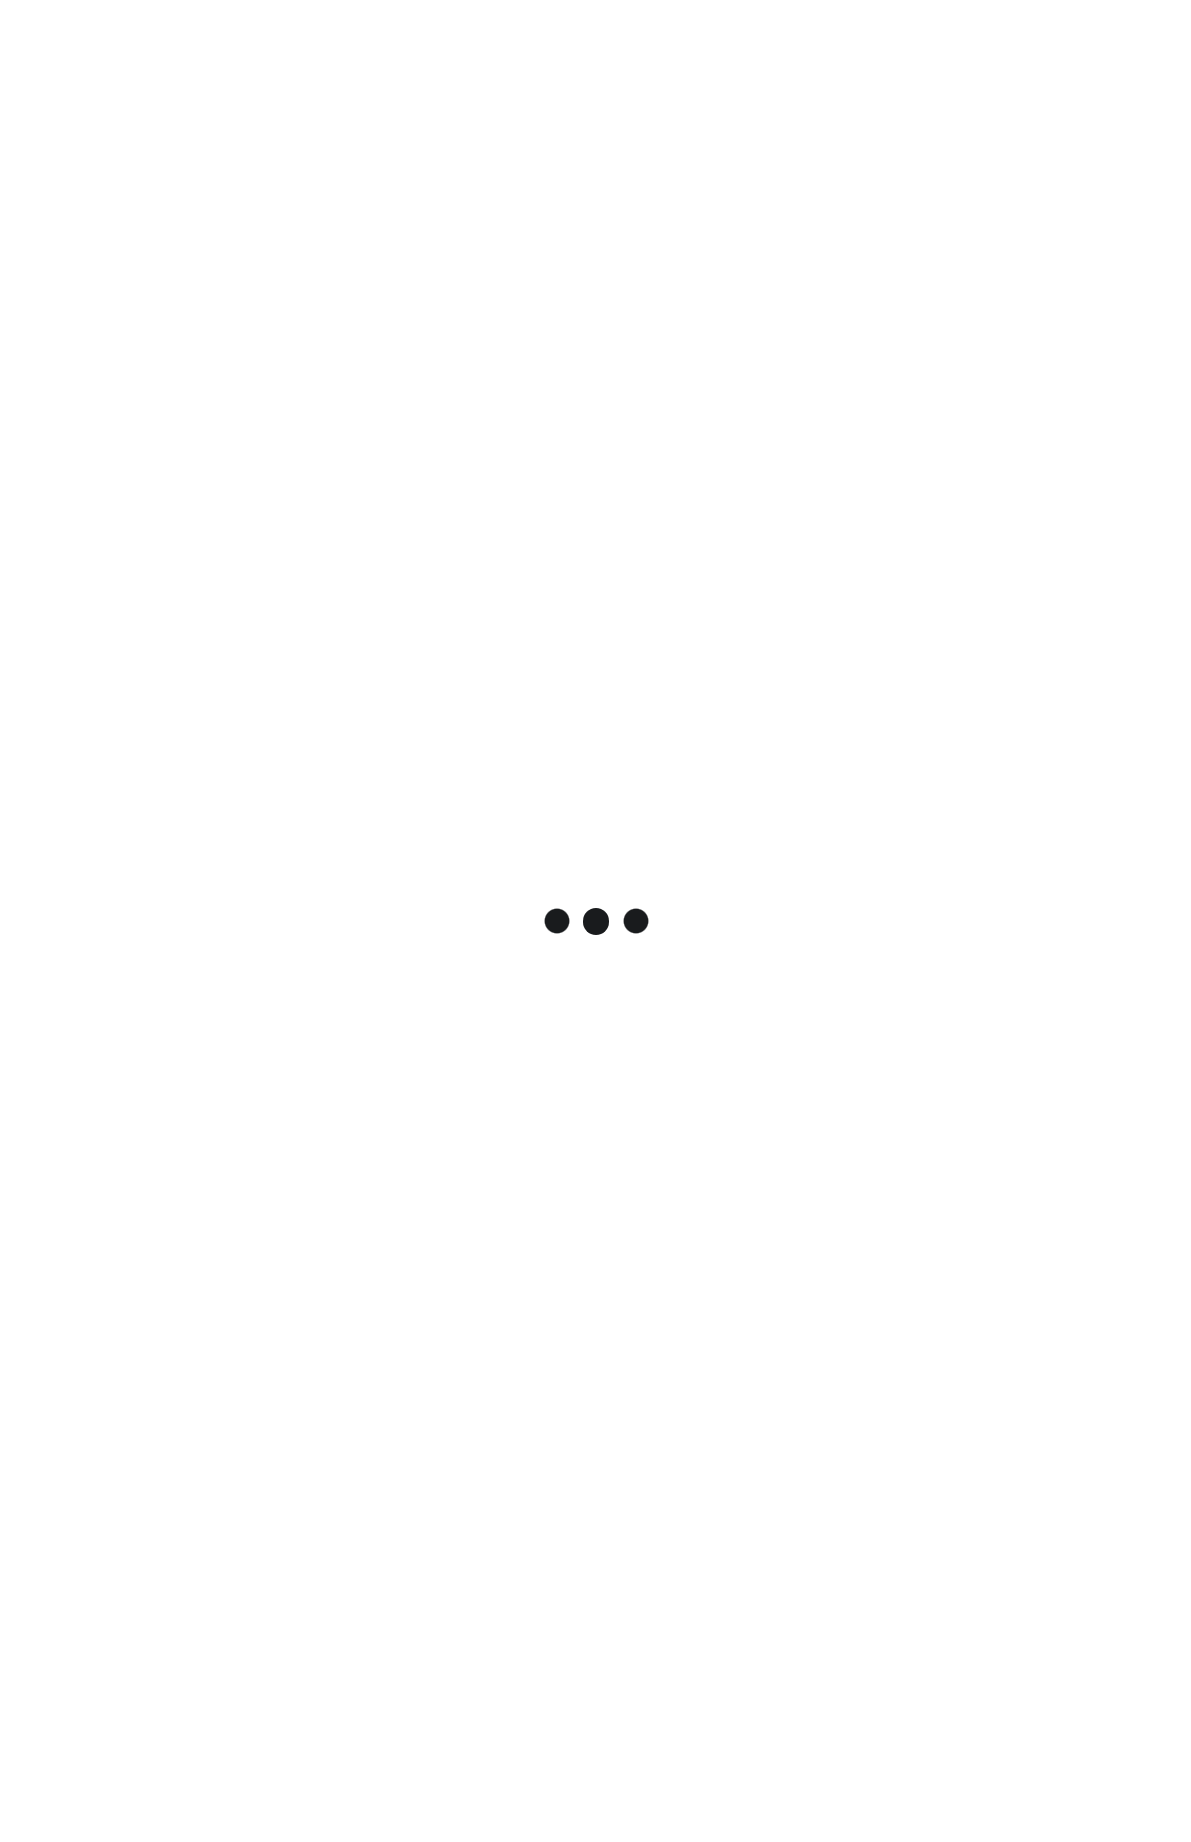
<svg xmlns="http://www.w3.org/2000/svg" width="1191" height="1842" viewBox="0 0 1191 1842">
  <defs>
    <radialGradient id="g1" gradientUnits="userSpaceOnUse" cx="636" cy="921" r="13"><stop offset="0.9" stop-color="#191b1d"/><stop offset="1" stop-color="#fff"/></radialGradient>
    <radialGradient id="g2" gradientUnits="userSpaceOnUse" cx="557" cy="921" r="13"><stop offset="0.9" stop-color="#191b1d"/><stop offset="1" stop-color="#fff"/></radialGradient>
  </defs>
  <rect width="100%" height="100%" fill="#fff"/>
  <rect x="623" y="908" width="26" height="26" fill="url(#g1)"/>
  <rect x="544" y="908" width="26" height="26" fill="url(#g2)"/>
  <rect x="583" y="908" width="26" height="27" rx="13" fill="#191b1d"/>
</svg>
